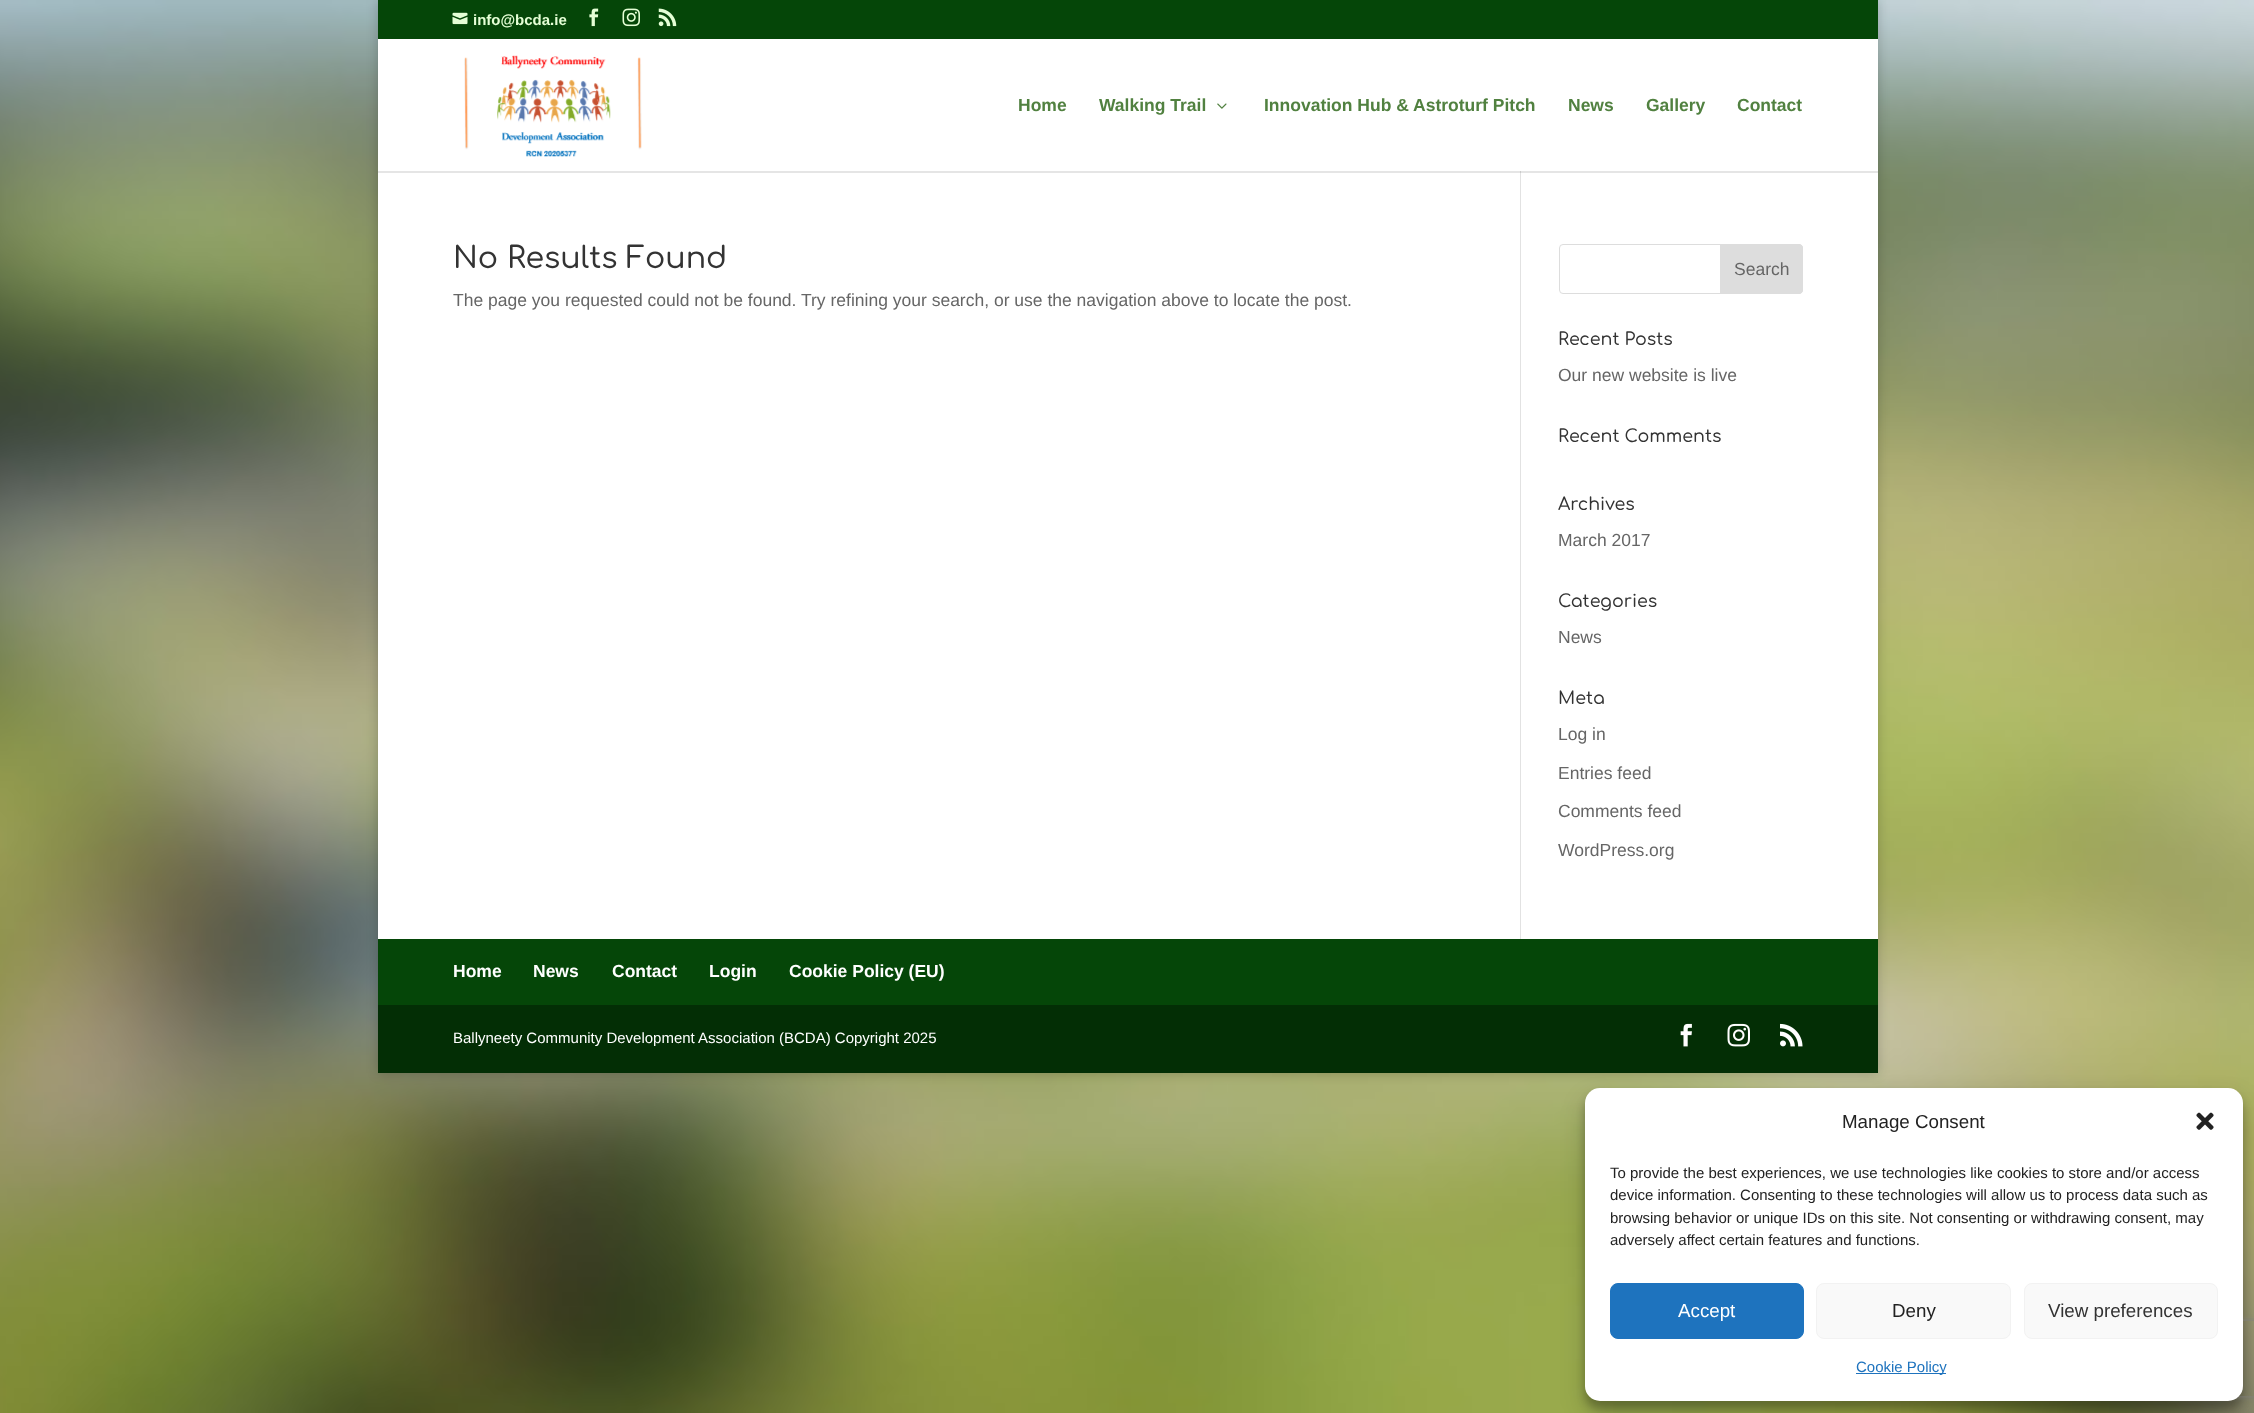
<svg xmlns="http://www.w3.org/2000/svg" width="2254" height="1413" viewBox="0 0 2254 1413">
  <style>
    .t1 { font: bold 15px Liberation Sans; fill: #e5ffd6; }
    .t2 { font: bold 17.5px Liberation Sans; fill: #518140; }
    .t3 { font: 500 30px Comfortaa; fill: #333; }
    .t4 { font: 17.5px Liberation Sans; fill: #666; }
    .t5 { font: 500 17.5px Comfortaa; fill: #333; }
    .t6 { font: bold 17.5px Liberation Sans; fill: #fff; }
    .t7 { font: 15px Liberation Sans; fill: #fff; }
    .t8 { font: 18.75px Liberation Sans; fill: #222; }
    .t9 { font: 15px Liberation Sans; fill: #222; }
    .t10 { font: 18.75px Liberation Sans; fill: #fff; }
    .t11 { font: 18.75px Liberation Sans; fill: #333; }
    .t12 { font: 15px Liberation Sans; fill: #1e73be; }
  </style>
  <defs>
    <clipPath id="clip1"><path d="M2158 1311H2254V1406H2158ZM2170.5 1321H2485.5C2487 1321 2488 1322 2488 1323.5V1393.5C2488 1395 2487 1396 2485.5 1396H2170.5C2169 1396 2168 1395 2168 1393.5V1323.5C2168 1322 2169 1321 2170.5 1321Z" clip-rule="evenodd"/></clipPath>
  </defs>
  <rect width="100%" height="100%" fill="#fff"/>
  <image x="0" y="0" width="2254" height="1413" href="images/1.png"/>
  <rect x="378" y="0" width="1500" height="1073" fill="#00000033" filter="blur(6px)"/>
  <rect x="378" y="0" width="1500" height="39" fill="#054608"/>
  <image x="452" y="12" width="16" height="13" href="images/2.png"/>
  <text x="473" y="25" class="t1">info@bcda.ie</text>
  <image x="589" y="8" width="10" height="19" href="images/3.png"/>
  <image x="622" y="8" width="18" height="19" href="images/4.png"/>
  <image x="658" y="8" width="19" height="19" href="images/5.png"/>
  <rect x="378" y="39" width="1500" height="900" fill="#fff"/>
  <rect x="1520" y="171" width="1" height="768" fill="#e2e2e2"/>
  <path d="M378 171V173H1878V40V171Z" fill="#0000001a"/>
  <image x="464" y="55" width="178" height="102" href="images/6.png"/>
  <text x="1018" y="111" class="t2">Home</text>
  <text x="1099" y="111" class="t2">Walking Trail</text>
  <image x="1217" y="103" width="10" height="6" href="images/7.png"/>
  <text x="1264" y="111" class="t2">Innovation Hub &amp; Astroturf Pitch</text>
  <text x="1568" y="111" class="t2">News</text>
  <text x="1646" y="111" class="t2">Gallery</text>
  <text x="1737" y="111" class="t2">Contact</text>
  <text x="453" y="268" class="t3">No Results Found</text>
  <text x="453" y="306" class="t4">The page you requested could not be found. Try refining your search, or use the navigation above to locate the post.</text>
  <rect x="1559.5" y="244.5" width="243" height="49" rx="3.5" fill="none" stroke="#ddd"/>
  <path d="M1720.5 244.5H1799C1801 244.5 1802.5 246 1802.5 248V290C1802.5 292 1801 293.5 1799 293.5H1720.5Z" fill="#ddd" stroke="#ddd"/>
  <text x="1734" y="275" class="t4">Search</text>
  <text x="1558" y="345" class="t5">Recent Posts</text>
  <text x="1558" y="381" class="t4">Our new website is live</text>
  <text x="1558" y="442" class="t5">Recent Comments</text>
  <text x="1558" y="510" class="t5">Archives</text>
  <text x="1558" y="546" class="t4">March 2017</text>
  <text x="1558" y="607" class="t5">Categories</text>
  <text x="1558" y="643" class="t4">News</text>
  <text x="1558" y="704" class="t5">Meta</text>
  <text x="1558" y="740" class="t4">Log in</text>
  <text x="1558" y="779" class="t4">Entries feed</text>
  <text x="1558" y="817" class="t4">Comments feed</text>
  <text x="1558" y="856" class="t4">WordPress.org</text>
  <rect x="378" y="939" width="1500" height="66" fill="#054608"/>
  <text x="453" y="977" class="t6">Home</text>
  <text x="533" y="977" class="t6">News</text>
  <text x="612" y="977" class="t6">Contact</text>
  <text x="709" y="977" class="t6">Login</text>
  <text x="789" y="977" class="t6">Cookie Policy (EU)</text>
  <rect x="378" y="1005" width="1500" height="68" fill="#032e05"/>
  <text x="453" y="1043" class="t7">Ballyneety Community Development Association (BCDA) Copyright 2025</text>
  <image x="1680" y="1023" width="12" height="24" href="images/8.png"/>
  <image x="1727" y="1023" width="23" height="24" href="images/9.png"/>
  <image x="1780" y="1023" width="23" height="24" href="images/10.png"/>
  <rect x="1585" y="1095" width="658" height="314" rx="15" fill="#0000003b" filter="blur(4px)"/>
  <rect x="1585" y="1100" width="658" height="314" rx="15" fill="#00000030" filter="blur(12.5px)"/>
  <g clip-path="url(#clip1)">
    <rect x="2168" y="1321" width="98" height="75" rx="2.5" fill="#808080" filter="blur(3px)"/>
  </g>
  <rect x="1585" y="1088" width="658" height="313" rx="15" fill="#fff"/>
  <text x="1842" y="1128" class="t8">Manage Consent</text>
  <image x="2196" y="1112" width="18" height="18" href="images/11.png"/>
  <text x="1610" y="1178" class="t9">To provide the best experiences, we use technologies like cookies to store and/or access</text>
  <text x="1610" y="1200" class="t9">device information. Consenting to these technologies will allow us to process data such as</text>
  <text x="1610" y="1223" class="t9">browsing behavior or unique IDs on this site. Not consenting or withdrawing consent, may</text>
  <text x="1610" y="1245" class="t9">adversely affect certain features and functions.</text>
  <rect x="1610.5" y="1283.5" width="193" height="55" rx="7.5" fill="#1e73be" stroke="#1e73be"/>
  <text x="1678" y="1317" class="t10">Accept</text>
  <rect x="1816.5" y="1283.5" width="194" height="55" rx="7.5" fill="#f9f9f9" stroke="#f2f2f2"/>
  <text x="1892" y="1317" class="t8">Deny</text>
  <rect x="2024.5" y="1283.5" width="193" height="55" rx="7.5" fill="#f9f9f9" stroke="#f2f2f2"/>
  <text x="2048" y="1317" class="t11">View preferences</text>
  <rect x="1856" y="1373" width="90" height="1" fill="#1e73be"/>
  <text x="1856" y="1372" class="t12">Cookie Policy</text>
</svg>
